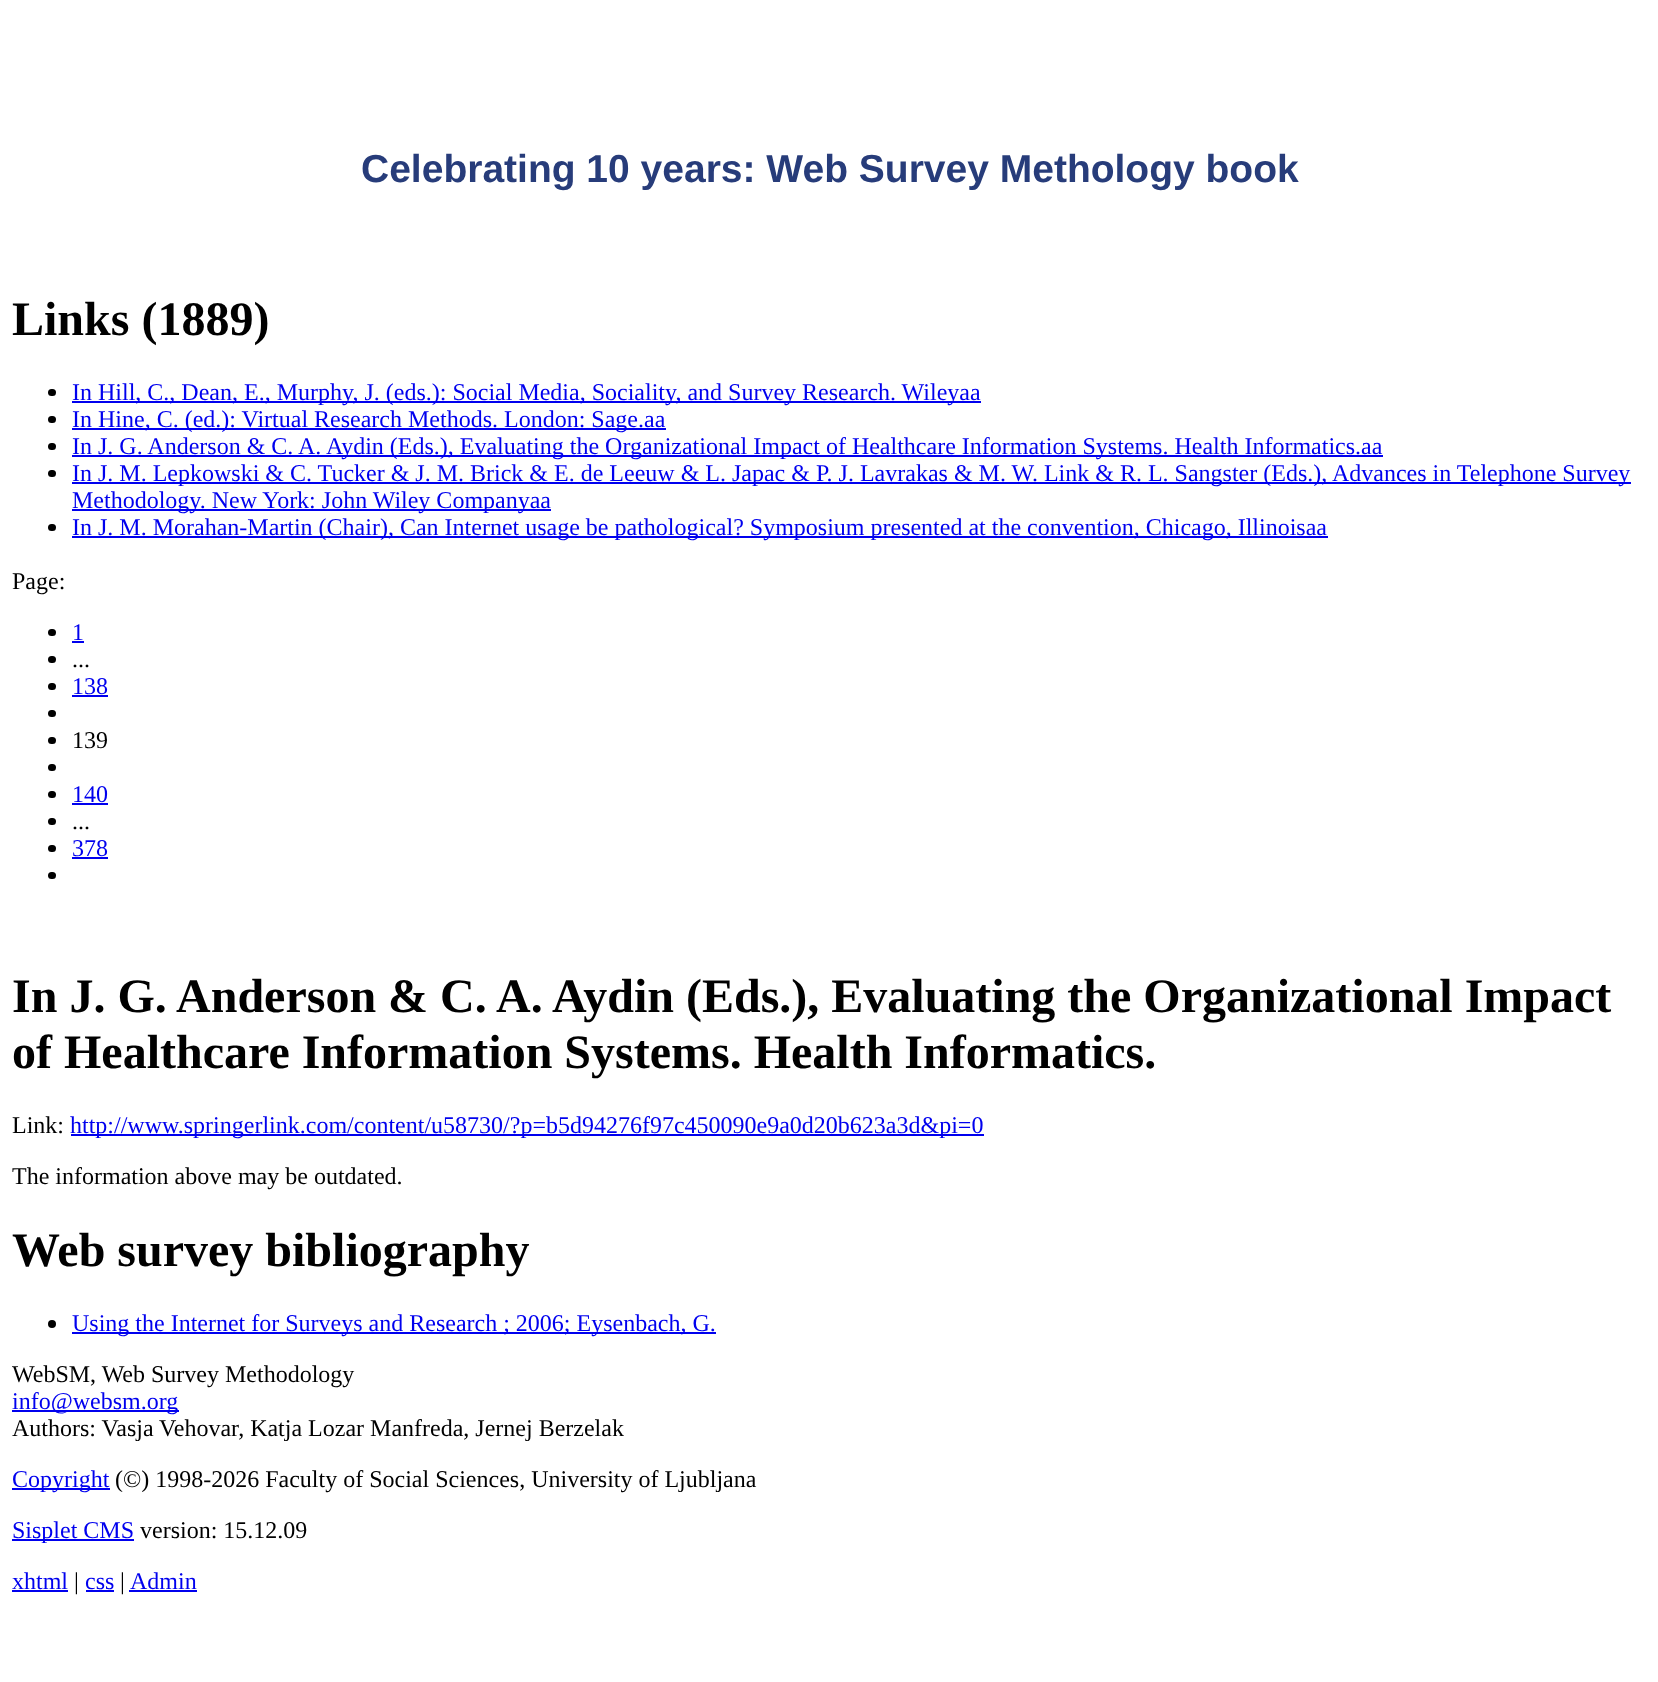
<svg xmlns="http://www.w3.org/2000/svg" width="1658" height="1682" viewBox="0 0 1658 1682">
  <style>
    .t1 { font: bold 39px Liberation Sans; fill: #273c7a; }
    .t2 { font: bold 48px Liberation Serif; fill: #000; }
    .t3 { font: 24px Liberation Serif; fill: #00e; }
    .t4 { font: 24px Liberation Serif; fill: #000; }
  </style>
  <rect width="100%" height="100%" fill="#fff"/>
  <text x="361" y="182" class="t1">Celebrating 10 years: Web Survey Methology book</text>
  <text x="12" y="335" class="t2">Links (1889)</text>
  <rect x="48" y="389" width="8" height="7" rx="3.5" fill="#000"/>
  <rect x="72" y="401" width="909" height="2" fill="#00e"/>
  <text x="72" y="400" class="t3">In Hill, C., Dean, E., Murphy, J. (eds.): Social Media, Sociality, and Survey Research. Wileyaa</text>
  <rect x="48" y="416" width="8" height="7" rx="3.5" fill="#000"/>
  <rect x="72" y="428" width="594" height="2" fill="#00e"/>
  <text x="72" y="427" class="t3">In Hine, C. (ed.): Virtual Research Methods. London: Sage.aa</text>
  <rect x="48" y="443" width="8" height="7" rx="3.5" fill="#000"/>
  <rect x="72" y="455" width="1311" height="2" fill="#00e"/>
  <text x="72" y="454" class="t3">In J. G. Anderson &amp; C. A. Aydin (Eds.), Evaluating the Organizational Impact of Healthcare Information Systems. Health Informatics.aa</text>
  <rect x="48" y="470" width="8" height="7" rx="3.5" fill="#000"/>
  <rect x="72" y="482" width="1559" height="2" fill="#00e"/>
  <text x="72" y="481" class="t3">In J. M. Lepkowski &amp; C. Tucker &amp; J. M. Brick &amp; E. de Leeuw &amp; L. Japac &amp; P. J. Lavrakas &amp; M. W. Link &amp; R. L. Sangster (Eds.), Advances in Telephone Survey</text>
  <rect x="72" y="509" width="479" height="2" fill="#00e"/>
  <text x="72" y="508" class="t3">Methodology. New York: John Wiley Companyaa</text>
  <rect x="48" y="524" width="8" height="7" rx="3.5" fill="#000"/>
  <rect x="72" y="536" width="1256" height="2" fill="#00e"/>
  <text x="72" y="535" class="t3">In J. M. Morahan-Martin (Chair), Can Internet usage be pathological? Symposium presented at the convention, Chicago, Illinoisaa</text>
  <text x="12" y="589" class="t4">Page:</text>
  <rect x="48" y="629" width="8" height="7" rx="3.5" fill="#000"/>
  <text x="72" y="640" class="t3">1</text>
  <rect x="72" y="641" width="12" height="2" fill="#00e"/>
  <rect x="48" y="656" width="8" height="7" rx="3.5" fill="#000"/>
  <text x="72" y="667" class="t4">...</text>
  <rect x="48" y="683" width="8" height="7" rx="3.5" fill="#000"/>
  <text x="72" y="694" class="t3">138</text>
  <rect x="72" y="695" width="36" height="2" fill="#00e"/>
  <rect x="48" y="710" width="8" height="7" rx="3.5" fill="#000"/>
  <rect x="48" y="737" width="8" height="7" rx="3.5" fill="#000"/>
  <text x="72" y="748" class="t4">139</text>
  <rect x="48" y="764" width="8" height="7" rx="3.5" fill="#000"/>
  <rect x="48" y="791" width="8" height="7" rx="3.5" fill="#000"/>
  <text x="72" y="802" class="t3">140</text>
  <rect x="72" y="803" width="36" height="2" fill="#00e"/>
  <rect x="48" y="818" width="8" height="7" rx="3.5" fill="#000"/>
  <text x="72" y="829" class="t4">...</text>
  <rect x="48" y="845" width="8" height="7" rx="3.5" fill="#000"/>
  <text x="72" y="856" class="t3">378</text>
  <rect x="72" y="857" width="36" height="2" fill="#00e"/>
  <rect x="48" y="872" width="8" height="7" rx="3.5" fill="#000"/>
  <text x="12" y="1012" class="t2">In J. G. Anderson &amp; C. A. Aydin (Eds.), Evaluating the Organizational Impact</text>
  <text x="12" y="1068" class="t2">of Healthcare Information Systems. Health Informatics.</text>
  <text x="12" y="1133" class="t4">Link:</text>
  <rect x="71" y="1134" width="913" height="2" fill="#00e"/>
  <text x="70" y="1133" class="t3">http://www.springerlink.com/content/u58730/?p=b5d94276f97c450090e9a0d20b623a3d&amp;pi=0</text>
  <text x="12" y="1184" class="t4">The information above may be outdated.</text>
  <text x="12" y="1266" class="t2">Web survey bibliography</text>
  <circle cx="52" cy="1324" r="4" fill="#000"/>
  <rect x="72" y="1332" width="644" height="2" fill="#00e"/>
  <text x="72" y="1331" class="t3">Using the Internet for Surveys and Research ; 2006; Eysenbach, G.</text>
  <text x="12" y="1382" class="t4">WebSM, Web Survey Methodology</text>
  <rect x="12" y="1410" width="167" height="2" fill="#00e"/>
  <text x="12" y="1409" class="t3">info@websm.org</text>
  <text x="12" y="1436" class="t4">Authors: Vasja Vehovar, Katja Lozar Manfreda, Jernej Berzelak</text>
  <rect x="12" y="1488" width="98" height="2" fill="#00e"/>
  <text x="12" y="1487" class="t3">Copyright</text>
  <text x="115" y="1487" class="t4">(©) 1998-2026 Faculty of Social Sciences, University of Ljubljana</text>
  <rect x="12" y="1539" width="122" height="2" fill="#00e"/>
  <text x="12" y="1538" class="t3">Sisplet CMS</text>
  <text x="140" y="1538" class="t4">version: 15.12.09</text>
  <text x="12" y="1589" class="t3">xhtml</text>
  <rect x="12" y="1590" width="56" height="2" fill="#00e"/>
  <text x="74" y="1589" class="t4">|</text>
  <text x="85" y="1589" class="t3">css</text>
  <rect x="86" y="1590" width="28" height="2" fill="#00e"/>
  <text x="120" y="1589" class="t4">|</text>
  <text x="130" y="1589" class="t3">Admin</text>
  <rect x="129" y="1590" width="68" height="2" fill="#00e"/>
</svg>
